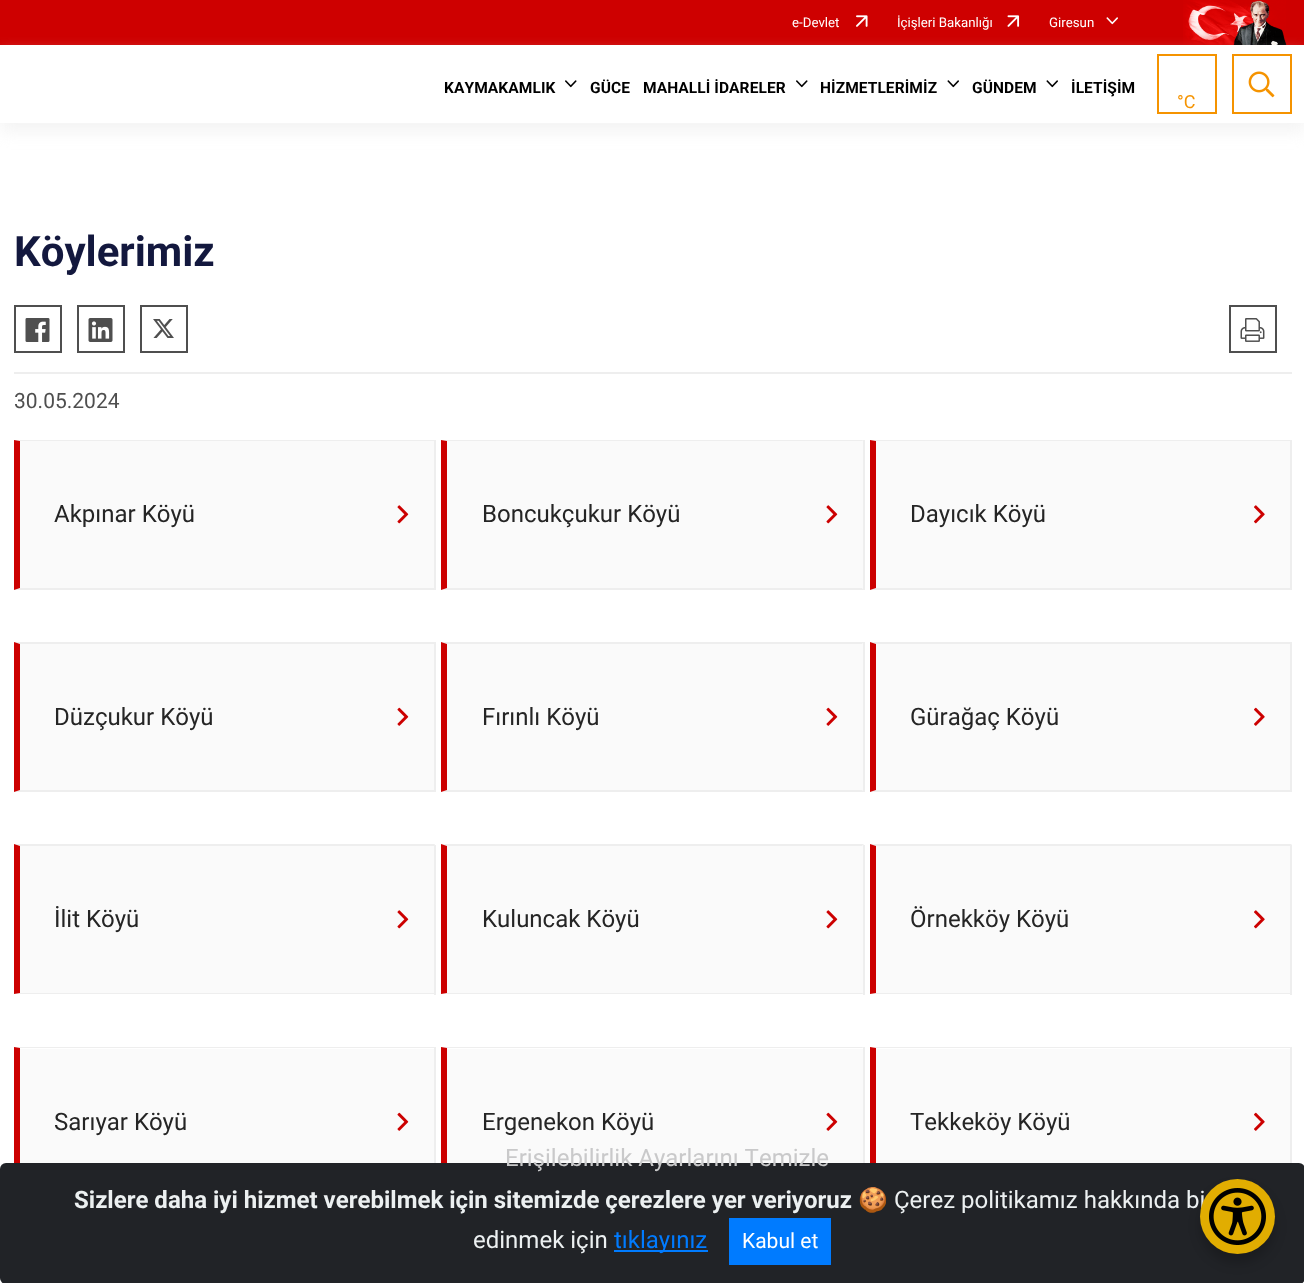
<svg xmlns="http://www.w3.org/2000/svg" width="1304" height="1283" viewBox="0 0 1304 1283">
  <style>*{font-kerning:none!important;font-variant-ligatures:none!important}</style>
  <style>
    .t1 { font: 13.25px Roboto; fill: #fff; }
    .t2 { font: bold 15.5px Roboto; letter-spacing: 0.1px; fill: #000; }
    .t3 { font: 18px Roboto; fill: #f59300; }
    .t4 { font: bold 42px Roboto; fill: #13183e; }
    .t5 { font: 21px Roboto; fill: #4f4f4f; }
    .t6 { font: 24px Roboto; fill: #252525; }
    .t7 { font: 24px Roboto; fill: #c9c9ca; }
    .t8 { font: 24px Roboto; fill: #ecf0f1; }
    .t9 { font: bold 24px Roboto; fill: #ecf0f1; }
    .t10 { font: 24px Noto Color Emoji; fill: #ecf0f1; }
    .t11 { font: 24px Roboto; fill: #007bff; }
    .t12 { font: 21px Roboto; fill: #fff; }
  </style>
  <defs>
    <clipPath id="clip1"><path d="M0 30H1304V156H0ZM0 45H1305V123H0Z" clip-rule="evenodd"/></clipPath>
  </defs>
  <rect width="100%" height="100%" fill="#fff"/>
  <rect x="0" y="0" width="1304" height="45" fill="#ce0000"/>
  <text x="792" y="27" class="t1">e-Devlet</text>
  <image x="856" y="15" width="12" height="12" href="images/1.png"/>
  <text x="897" y="27" class="t1">İçişleri Bakanlığı</text>
  <image x="1007" y="15" width="13" height="12" href="images/2.png"/>
  <text x="1049" y="27" class="t1">Giresun</text>
  <image x="1106" y="17" width="12" height="8" href="images/3.png"/>
  <image x="1183" y="0" width="104" height="45" href="images/4.png"/>
  <g clip-path="url(#clip1)">
    <rect x="0" y="54" width="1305" height="78" fill="#eeeeee9e" filter="blur(7.5px)"/>
  </g>
  <text x="444" y="93" class="t2">KAYMAKAMLIK</text>
  <image x="565" y="80" width="12" height="8" href="images/5.png"/>
  <text x="590" y="93" class="t2">GÜCE</text>
  <text x="643" y="93" class="t2">MAHALLİ İDARELER</text>
  <image x="796" y="80" width="12" height="8" href="images/5.png"/>
  <text x="820" y="93" class="t2">HİZMETLERİMİZ</text>
  <image x="947" y="80" width="12" height="8" href="images/6.png"/>
  <text x="972" y="93" class="t2">GÜNDEM</text>
  <image x="1046" y="80" width="12" height="8" href="images/6.png"/>
  <text x="1071" y="93" class="t2">İLETİŞİM</text>
  <rect x="1158" y="55" width="58" height="58" fill="none" stroke="#f59300" stroke-width="2"/>
  <text x="1177" y="108" class="t3">°C</text>
  <rect x="1233" y="55" width="58" height="58" fill="none" stroke="#f59300" stroke-width="2"/>
  <image x="1248" y="71" width="27" height="27" href="images/7.png"/>
  <rect x="14" y="372" width="1278" height="2" fill="#eee"/>
  <text x="14" y="266" class="t4">Köylerimiz</text>
  <rect x="15" y="306" width="46" height="46" fill="none" stroke="#4f4f4f" stroke-width="2"/>
  <image x="25" y="318" width="25" height="24" href="images/8.png"/>
  <rect x="78" y="306" width="46" height="46" fill="none" stroke="#4f4f4f" stroke-width="2"/>
  <image x="88" y="318" width="25" height="24" href="images/9.png"/>
  <rect x="141" y="306" width="46" height="46" fill="none" stroke="#4f4f4f" stroke-width="2"/>
  <image x="153" y="319" width="21" height="19" href="images/10.png"/>
  <rect x="1230" y="306" width="46" height="46" fill="none" stroke="#4f4f4f" stroke-width="2"/>
  <image x="1240" y="318" width="25" height="24" href="images/11.png"/>
  <text x="14" y="408" class="t5">30.05.2024</text>
  <rect x="20" y="441" width="414" height="147" fill="#fafafa"/>
  <path d="M14 440H435L434 441H20Z" fill="#eee"/>
  <rect x="434" y="440" width="2" height="150" fill="#eee"/>
  <path d="M435 590H14L20 588H434Z" fill="#eee"/>
  <path d="M14 590V440L20 441V588Z" fill="#c00"/>
  <text x="54" y="522" class="t6">Akpınar Köyü</text>
  <image x="397" y="505" width="12" height="19" href="images/12.png"/>
  <rect x="447" y="441" width="416" height="147" fill="#fafafa"/>
  <path d="M441 440H864L862 441H447Z" fill="#eee"/>
  <rect x="863" y="440" width="2" height="150" fill="#eee"/>
  <path d="M864 590H441L447 588H862Z" fill="#eee"/>
  <path d="M441 590V440L447 441V588Z" fill="#c00"/>
  <text x="482" y="522" class="t6">Boncukçukur Köyü</text>
  <image x="826" y="505" width="12" height="19" href="images/12.png"/>
  <rect x="876" y="441" width="414" height="147" fill="#fafafa"/>
  <path d="M870 440H1292L1290 441H876Z" fill="#eee"/>
  <rect x="1290" y="440" width="2" height="150" fill="#eee"/>
  <path d="M1292 590H870L876 588H1290Z" fill="#eee"/>
  <path d="M870 590V440L876 441V588Z" fill="#c00"/>
  <text x="910" y="522" class="t6">Dayıcık Köyü</text>
  <image x="1254" y="505" width="11" height="19" href="images/13.png"/>
  <rect x="20" y="644" width="414" height="146" fill="#fafafa"/>
  <path d="M14 642H435L434 644H20Z" fill="#eee"/>
  <rect x="434" y="642" width="2" height="150" fill="#eee"/>
  <path d="M435 792H14L20 790H434Z" fill="#eee"/>
  <path d="M14 792V642L20 644V790Z" fill="#c00"/>
  <text x="54" y="725" class="t6">Düzçukur Köyü</text>
  <image x="397" y="707" width="12" height="19" href="images/14.png"/>
  <rect x="447" y="644" width="416" height="147" fill="#fafafa"/>
  <path d="M441 642H864L862 644H447Z" fill="#eee"/>
  <rect x="863" y="642" width="2" height="150" fill="#eee"/>
  <path d="M864 792H441L447 790H862Z" fill="#eee"/>
  <path d="M441 792V642L447 644V790Z" fill="#c00"/>
  <text x="482" y="725" class="t6">Fırınlı Köyü</text>
  <image x="826" y="707" width="12" height="19" href="images/14.png"/>
  <rect x="876" y="644" width="414" height="146" fill="#fafafa"/>
  <path d="M870 642H1292L1290 644H876Z" fill="#eee"/>
  <rect x="1290" y="642" width="2" height="150" fill="#eee"/>
  <path d="M1292 792H870L876 790H1290Z" fill="#eee"/>
  <path d="M870 792V642L876 644V790Z" fill="#c00"/>
  <text x="910" y="725" class="t6">Gürağaç Köyü</text>
  <image x="1254" y="707" width="11" height="19" href="images/15.png"/>
  <rect x="20" y="846" width="414" height="147" fill="#fafafa"/>
  <path d="M14 844H435L434 846H20Z" fill="#eee"/>
  <rect x="434" y="845" width="2" height="150" fill="#eee"/>
  <path d="M435 994H14L20 993H434Z" fill="#eee"/>
  <path d="M14 994V844L20 846V993Z" fill="#c00"/>
  <text x="54" y="927" class="t6">İlit Köyü</text>
  <image x="397" y="910" width="12" height="19" href="images/12.png"/>
  <rect x="447" y="846" width="416" height="147" fill="#fafafa"/>
  <path d="M441 844H864L862 846H447Z" fill="#eee"/>
  <rect x="863" y="845" width="2" height="150" fill="#eee"/>
  <path d="M864 994H441L447 993H862Z" fill="#eee"/>
  <path d="M441 994V844L447 846V993Z" fill="#c00"/>
  <text x="482" y="927" class="t6">Kuluncak Köyü</text>
  <image x="826" y="910" width="12" height="19" href="images/12.png"/>
  <rect x="876" y="846" width="414" height="147" fill="#fafafa"/>
  <path d="M870 844H1292L1290 846H876Z" fill="#eee"/>
  <rect x="1290" y="845" width="2" height="150" fill="#eee"/>
  <path d="M1292 994H870L876 993H1290Z" fill="#eee"/>
  <path d="M870 994V844L876 846V993Z" fill="#c00"/>
  <text x="910" y="927" class="t6">Örnekköy Köyü</text>
  <image x="1254" y="910" width="11" height="19" href="images/13.png"/>
  <rect x="20" y="1049" width="414" height="114" fill="#fafafa"/>
  <path d="M14 1047H435L434 1048H20Z" fill="#eee"/>
  <rect x="434" y="1047" width="2" height="116" fill="#eee"/>
  <path d="M14 1197V1047L20 1048V1196Z" fill="#c00"/>
  <text x="54" y="1130" class="t6">Sarıyar Köyü</text>
  <image x="397" y="1112" width="12" height="19" href="images/14.png"/>
  <rect x="447" y="1049" width="416" height="114" fill="#fafafa"/>
  <path d="M441 1047H864L862 1048H447Z" fill="#eee"/>
  <rect x="863" y="1047" width="2" height="116" fill="#eee"/>
  <path d="M441 1197V1047L447 1048V1196Z" fill="#c00"/>
  <text x="482" y="1130" class="t6">Ergenekon Köyü</text>
  <image x="826" y="1112" width="12" height="19" href="images/14.png"/>
  <rect x="876" y="1049" width="414" height="114" fill="#fafafa"/>
  <path d="M870 1047H1292L1290 1048H876Z" fill="#eee"/>
  <rect x="1290" y="1047" width="2" height="116" fill="#eee"/>
  <path d="M870 1197V1047L876 1048V1196Z" fill="#c00"/>
  <text x="910" y="1130" class="t6">Tekkeköy Köyü</text>
  <image x="1254" y="1112" width="11" height="19" href="images/15.png"/>
  <rect x="0" y="1163" width="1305" height="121" rx="6" fill="#212327"/>
  <text x="505" y="1166" class="t7">Erişilebilirlik Ayarlarını Temizle</text>
  <rect x="1200" y="1188" width="75" height="75" rx="37.5" fill="#00000033" filter="blur(6px)"/>
  <text x="894" y="1208" class="t8">Çerez politikamız hakkında bi</text>
  <circle cx="1237.5" cy="1216.5" r="37.5" fill="#e1ad01"/>
  <image x="1209" y="1188" width="57" height="57" href="images/16.png"/>
  <text x="74" y="1208" class="t9">Sizlere daha iyi hizmet verebilmek için sitemizde çerezlere yer veriyoruz</text>
  <text x="858" y="1208" class="t10">🍪</text>
  <text x="473" y="1248" class="t8">edinmek için</text>
  <rect x="614" y="1250" width="94" height="2" fill="#007bff"/>
  <text x="614" y="1248" class="t11">tıklayınız</text>
  <rect x="729" y="1218" width="102" height="47" fill="#007bff"/>
  <text x="742" y="1248" class="t12">Kabul et</text>
</svg>
